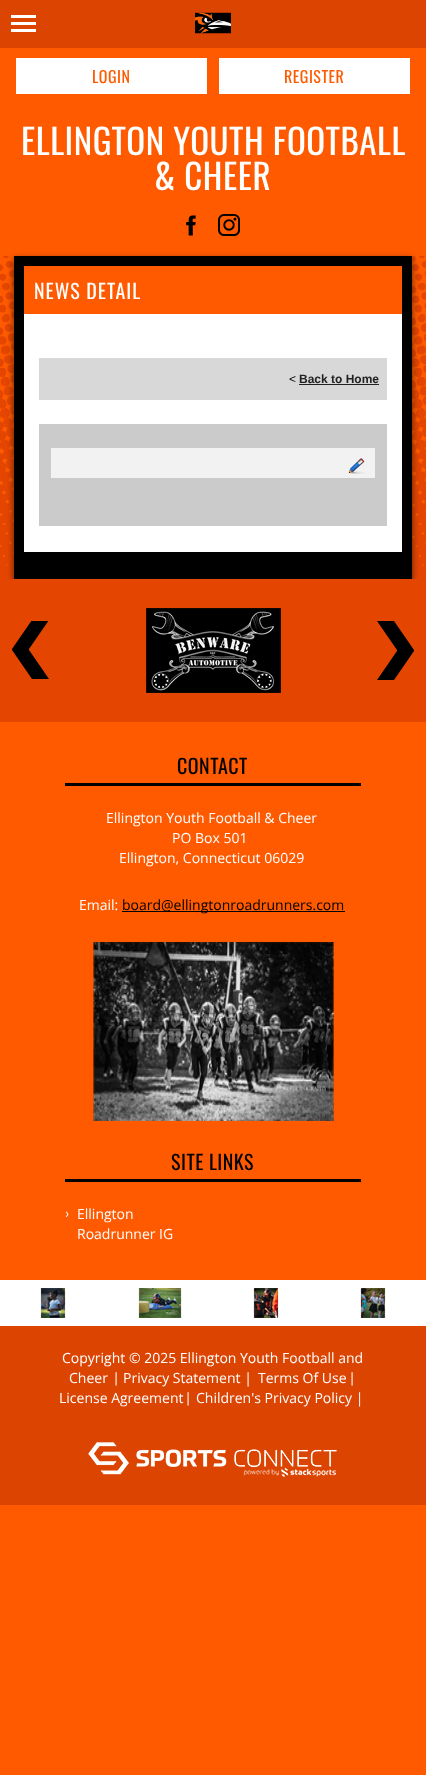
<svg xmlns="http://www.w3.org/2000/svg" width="426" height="1775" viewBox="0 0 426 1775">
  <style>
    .t1 { font: 16px Oswald; letter-spacing: 0.5px; fill: #ff5a00; }
    .t2 { font: 35px Oswald; letter-spacing: 0.5px; fill: #fff; }
    .t3 { font: 20px Oswald; letter-spacing: 1px; fill: #fff; }
    .t4 { font: 12px Liberation Sans; fill: #000; }
    .t5 { font: bold 12px Liberation Sans; fill: #222; }
    .t6 { font: 20px Oswald; letter-spacing: 0.5px; fill: #000; }
    .t7 { font: 14px Open Sans; fill: #fff; }
    .t8 { font: 14px Open Sans; fill: #000; }
    .t9 { font: 14px Lato; fill: #fff; }
  </style>
  <defs>
    <clipPath id="clip1"><rect x="12" y="621" width="37" height="59"/></clipPath>
  </defs>
  <rect width="100%" height="100%" fill="#ff5a00"/>
  <rect x="0" y="0" width="426" height="48" fill="#dc4402"/>
  <image x="11" y="15" width="25" height="17" href="images/1.png"/>
  <image x="195" y="12" width="36" height="22" href="images/2.png"/>
  <rect x="16" y="58" width="191" height="36" fill="#fff"/>
  <text x="92" y="83" class="t1">LOGIN</text>
  <rect x="219" y="58" width="191" height="36" fill="#fff"/>
  <text x="284" y="83" class="t1">REGISTER</text>
  <text x="21" y="155" class="t2">ELLINGTON YOUTH FOOTBALL</text>
  <text x="154" y="190" class="t2">&amp; CHEER</text>
  <image x="186" y="215" width="10" height="21" href="images/3.png"/>
  <image x="218" y="214" width="22" height="22" href="images/4.png"/>
  <image x="0" y="256" width="426" height="323" href="images/5.png"/>
  <rect x="14" y="259" width="398" height="324" fill="#0000009c" filter="blur(3.5px)"/>
  <rect x="14" y="256" width="398" height="323" fill="#000"/>
  <rect x="24" y="266" width="378" height="48" fill="#ff5a00"/>
  <text x="34" y="299" class="t3">NEWS DETAIL</text>
  <rect x="24" y="314" width="378" height="238" fill="#fff"/>
  <rect x="39" y="358" width="348" height="42" fill="#d8d8d8"/>
  <text x="289" y="383" class="t4">&lt;</text>
  <text x="299" y="383" class="t5">Back to Home</text>
  <rect x="299" y="384" width="80" height="1" fill="#222"/>
  <rect x="39" y="424" width="348" height="102" fill="#cbcbcb"/>
  <rect x="51" y="448" width="324" height="30" fill="#f2f2f2"/>
  <image x="348" y="458" width="17" height="16" href="images/6.png"/>
  <rect x="0" y="579" width="426" height="143" fill="#e44601"/>
  <g clip-path="url(#clip1)">
    <path d="M49 679H32L12 650V649L32 620H49L29 649V650Z" fill="#000"/>
  </g>
  <image x="146" y="608" width="135" height="85" href="images/7.png"/>
  <path d="M377 621H394L414 650V651L394 680H377L397 651V650Z" fill="#000"/>
  <text x="177" y="774" class="t6">CONTACT</text>
  <rect x="65" y="783" width="296" height="3" fill="#000"/>
  <text x="106" y="823" class="t7">Ellington Youth Football &amp; Cheer</text>
  <text x="172" y="843" class="t7">PO Box 501</text>
  <text x="119" y="863" class="t7">Ellington, Connecticut 06029</text>
  <text x="79" y="910" class="t7">Email:</text>
  <rect x="122" y="911" width="223" height="1" fill="#000"/>
  <text x="122" y="910" class="t8">board@ellingtonroadrunners.com</text>
  <image x="93" y="942" width="241" height="179" href="images/8.png"/>
  <text x="171" y="1170" class="t6">SITE LINKS</text>
  <rect x="65" y="1179" width="296" height="3" fill="#000"/>
  <text x="65" y="1218" class="t9">›</text>
  <text x="77" y="1219" class="t7">Ellington</text>
  <text x="77" y="1239" class="t7">Roadrunner IG</text>
  <rect x="0" y="1280" width="426" height="46" fill="#fff"/>
  <image x="40" y="1288" width="26" height="30" href="images/9.png"/>
  <image x="138" y="1288" width="44" height="30" href="images/10.png"/>
  <image x="253" y="1288" width="26" height="30" href="images/11.png"/>
  <image x="360" y="1288" width="26" height="30" href="images/12.png"/>
  <rect x="0" y="1326" width="426" height="179" fill="#dc4402"/>
  <text x="62" y="1363" class="t7">Copyright © 2025 Ellington Youth Football and</text>
  <text x="69" y="1383" class="t7">Cheer</text>
  <text x="114" y="1383" class="t9">|</text>
  <text x="123" y="1383" class="t7">Privacy Statement |</text>
  <text x="258" y="1383" class="t7">Terms Of Use</text>
  <text x="350" y="1383" class="t9">|</text>
  <text x="59" y="1403" class="t7">License Agreement</text>
  <text x="186" y="1403" class="t9">|</text>
  <text x="196" y="1403" class="t7">Children's Privacy Policy |</text>
  <image x="88" y="1442" width="249" height="35" href="images/13.png"/>
</svg>
